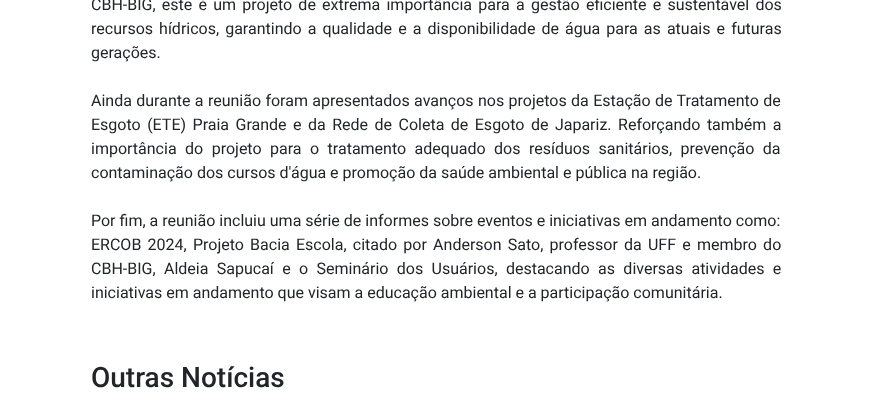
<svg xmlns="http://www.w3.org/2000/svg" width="871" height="401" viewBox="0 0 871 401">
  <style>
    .t1 { font: 16px Roboto; fill: #212529; }
    .t2 { font: 500 28px Roboto; fill: #212529; }
  </style>
  <rect width="100%" height="100%" fill="#fff"/>
  <text x="91" y="10" word-spacing="2.25" class="t1">CBH-BIG, este é um projeto de extrema importância para a gestão eficiente e sustentável dos</text>
  <text x="91" y="34" word-spacing="2.1" class="t1">recursos hídricos, garantindo a qualidade e a disponibilidade de água para as atuais e futuras</text>
  <text x="91" y="58" class="t1">gerações.</text>
  <text x="91" y="106" word-spacing="0.4" class="t1">Ainda durante a reunião foram apresentados avanços nos projetos da Estação de Tratamento de</text>
  <text x="91" y="130" word-spacing="2.5" class="t1">Esgoto (ETE) Praia Grande e da Rede de Coleta de Esgoto de Japariz. Reforçando também a</text>
  <text x="91" y="154" word-spacing="4.5" class="t1">importância do projeto para o tratamento adequado dos resíduos sanitários, prevenção da</text>
  <text x="91" y="178" class="t1">contaminação dos cursos d'água e promoção da saúde ambiental e pública na região.</text>
  <text x="91" y="226" class="t1">Por fim, a reunião incluiu uma série de informes sobre eventos e iniciativas em andamento como:</text>
  <text x="91" y="250" word-spacing="2.25" class="t1">ERCOB 2024, Projeto Bacia Escola, citado por Anderson Sato, professor da UFF e membro do</text>
  <text x="91" y="274" word-spacing="4.4" class="t1">CBH-BIG, Aldeia Sapucaí e o Seminário dos Usuários, destacando as diversas atividades e</text>
  <text x="91" y="298" class="t1">iniciativas em andamento que visam a educação ambiental e a participação comunitária.</text>
  <text x="91" y="387" class="t2">Outras Notícias</text>
</svg>
